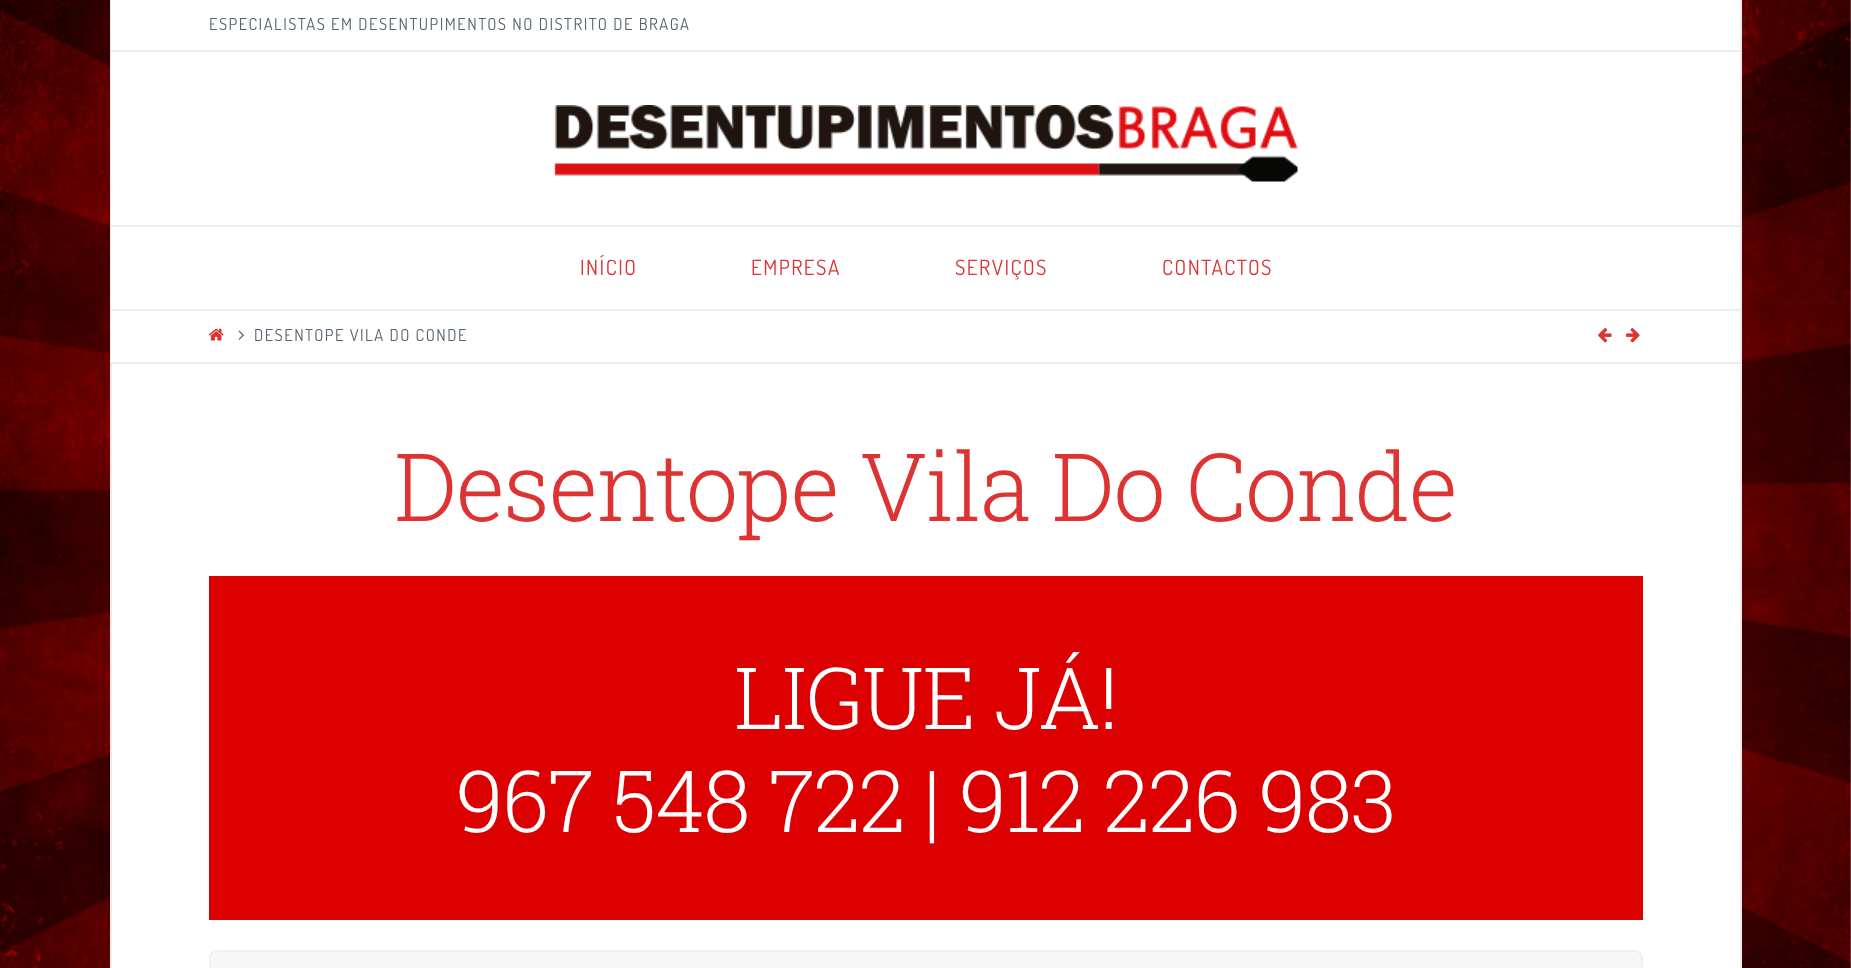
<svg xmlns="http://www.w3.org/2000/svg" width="1851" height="968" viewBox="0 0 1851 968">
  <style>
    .t1 { font: 16.5px Dosis; letter-spacing: 1.5px; fill: #566471; }
    .t2 { font: 21px Dosis; letter-spacing: 1.5px; fill: #d33; }
    .t3 { font: 300 94.25px Roboto Slab; letter-spacing: -1.5px; fill: #d33; }
    .t4 { font: 300 85.75px Roboto Slab; letter-spacing: -1.5px; fill: #fff; }
  </style>
  <rect width="100%" height="100%" fill="#fff"/>
  <image x="0" y="0" width="1851" height="968" href="images/1.png"/>
  <rect x="112" y="363" width="1628" height="605" fill="#fff"/>
  <rect x="1740" y="0" width="2" height="968" fill="#ececec"/>
  <rect x="110" y="0" width="2" height="968" fill="#ececec"/>
  <rect x="111" y="0" width="1629" height="50" fill="#fff"/>
  <rect x="111" y="50" width="1629" height="2" fill="#ececec"/>
  <text x="209" y="30" class="t1">ESPECIALISTAS EM DESENTUPIMENTOS NO DISTRITO DE BRAGA</text>
  <rect x="111" y="52" width="1629" height="173" fill="#fff"/>
  <rect x="111" y="225" width="1629" height="2" fill="#ececec"/>
  <image x="554" y="105" width="744" height="77" href="images/2.png"/>
  <rect x="111" y="227" width="1629" height="82" fill="#fff"/>
  <rect x="111" y="309" width="1629" height="2" fill="#ececec"/>
  <text x="580" y="275" class="t2">INÍCIO</text>
  <text x="751" y="275" class="t2">EMPRESA</text>
  <text x="955" y="275" class="t2">SERVIÇOS</text>
  <text x="1162" y="275" class="t2">CONTACTOS</text>
  <rect x="111" y="311" width="1629" height="52" fill="#fff"/>
  <rect x="111" y="362" width="1629" height="2" fill="#00000012"/>
  <image x="208" y="328" width="16" height="13" href="images/3.png"/>
  <image x="238" y="330" width="6" height="10" href="images/4.png"/>
  <text x="254" y="341" class="t1">DESENTOPE VILA DO CONDE</text>
  <image x="1598" y="328" width="14" height="15" href="images/5.png"/>
  <image x="1626" y="328" width="14" height="15" href="images/6.png"/>
  <text x="394" y="521" class="t3">Desentope Vila Do Conde</text>
  <rect x="209" y="576" width="1434" height="344" fill="#d00"/>
  <text x="734" y="729" class="t4">LIGUE JÁ!</text>
  <text x="456" y="832" class="t4">967 548 722 | 912 226 983</text>
  <rect x="210" y="951" width="1432" height="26" rx="7" fill="#f7f7f7" stroke="#f0f0f0" stroke-width="2"/>
</svg>
